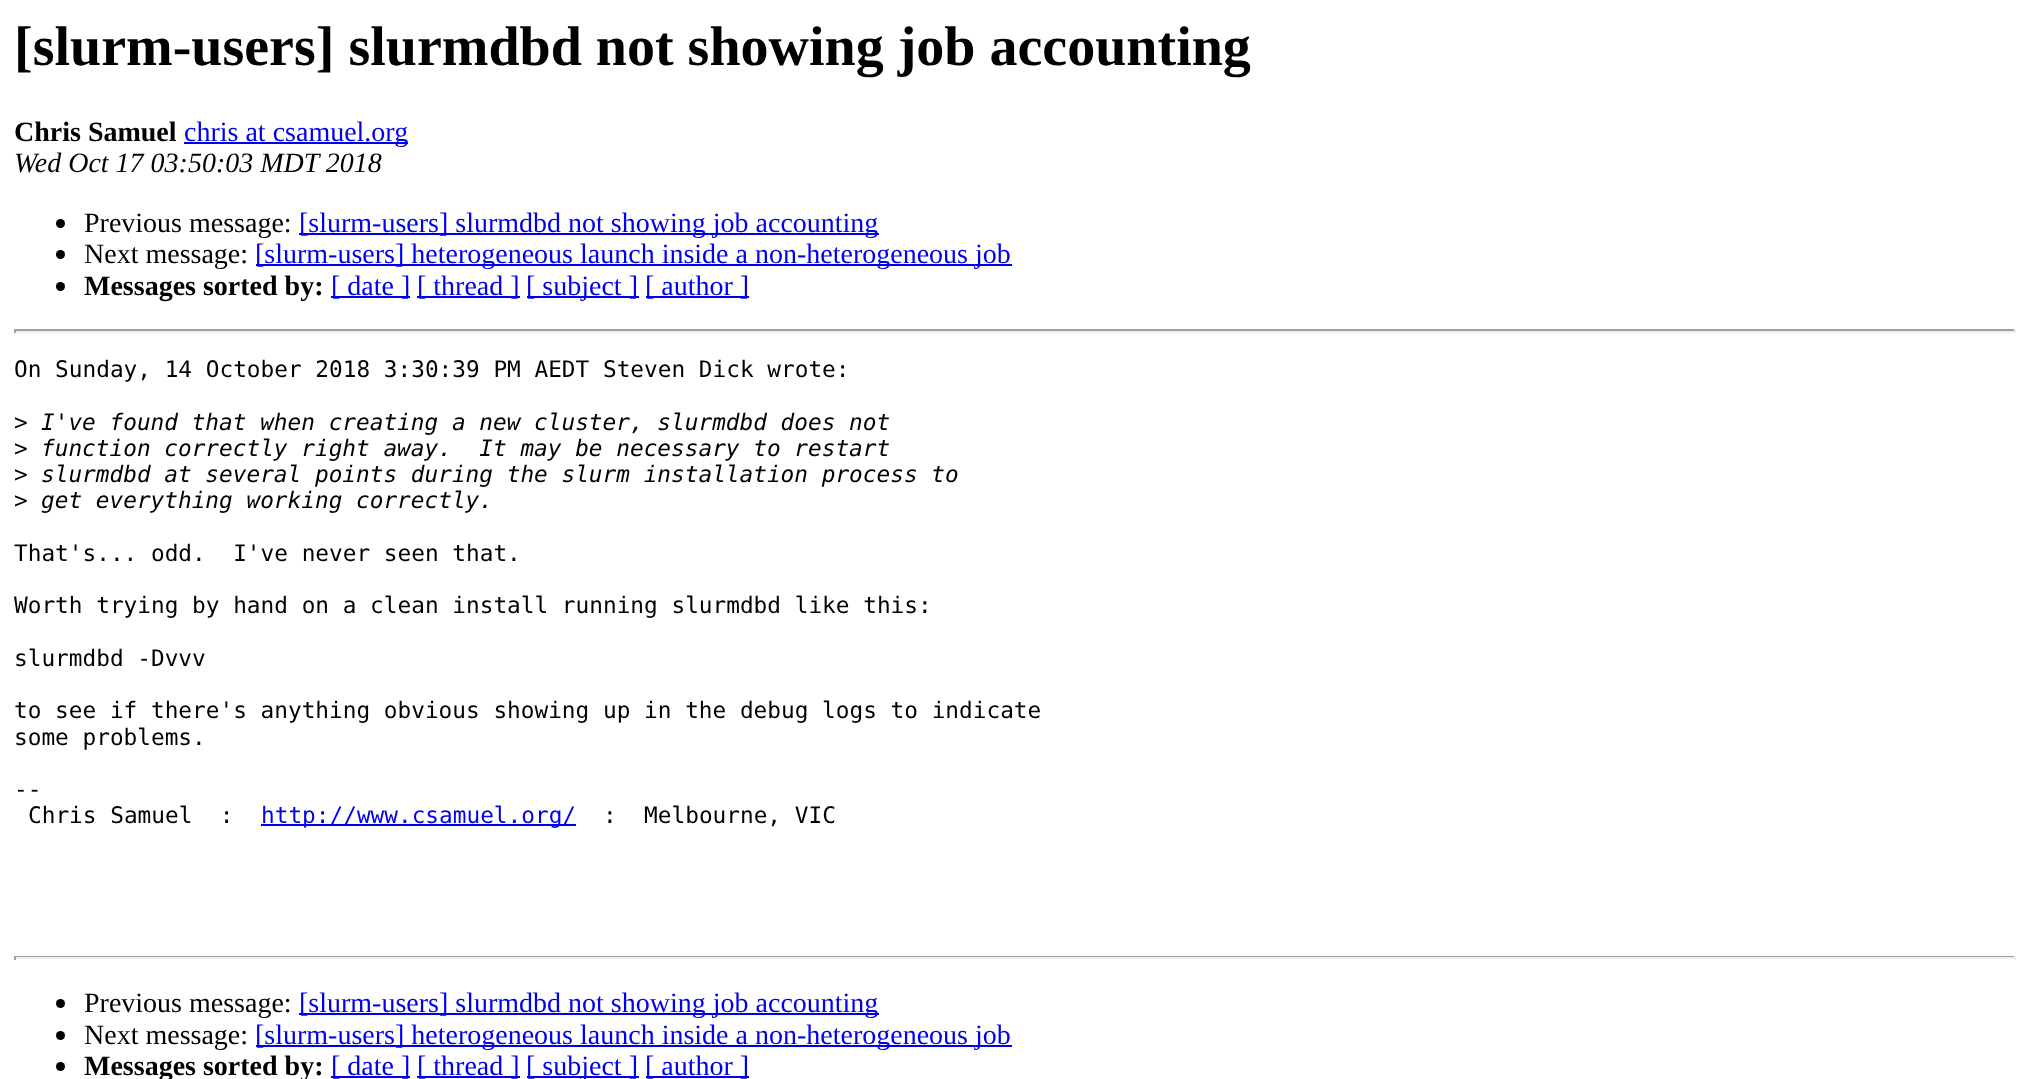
<svg xmlns="http://www.w3.org/2000/svg" width="2030" height="1079" viewBox="0 0 2030 1079">
  <style>
    .t1 { font: bold 56px Liberation Serif; fill: #000; }
    .t2 { font: bold 28px Liberation Serif; fill: #000; }
    .t3 { font: 28px Liberation Serif; fill: #00e; }
    .t4 { font: italic 28px Liberation Serif; fill: #000; }
    .t5 { font: 28px Liberation Serif; fill: #000; }
    .t6 { font: 22.75px DejaVu Sans Mono; fill: #000; }
    .t7 { font: italic 22.75px DejaVu Sans Mono; fill: #000; }
    .t8 { font: 22.75px DejaVu Sans Mono; fill: #00e; }
  </style>
  <rect width="100%" height="100%" fill="#fff"/>
  <text x="14" y="65" class="t1">[slurm-users] slurmdbd not showing job accounting</text>
  <text x="14" y="141" class="t2">Chris Samuel</text>
  <rect x="184" y="142" width="224" height="2" fill="#00e"/>
  <text x="184" y="141" class="t3">chris at csamuel.org</text>
  <text x="14" y="172" class="t4">Wed Oct 17 03:50:03 MDT 2018</text>
  <circle cx="60.5" cy="223.5" r="4.5" fill="#000"/>
  <text x="84" y="232" class="t5">Previous message:</text>
  <rect x="299" y="233" width="580" height="2" fill="#00e"/>
  <text x="299" y="232" class="t3">[slurm-users] slurmdbd not showing job accounting</text>
  <circle cx="60.5" cy="254.5" r="4.5" fill="#000"/>
  <text x="84" y="263" class="t5">Next message:</text>
  <rect x="256" y="264" width="756" height="2" fill="#00e"/>
  <text x="255" y="263" class="t3">[slurm-users] heterogeneous launch inside a non-heterogeneous job</text>
  <circle cx="60.5" cy="286.5" r="4.5" fill="#000"/>
  <text x="84" y="295" class="t2">Messages sorted by:</text>
  <rect x="331" y="296" width="79" height="2" fill="#00e"/>
  <text x="331" y="295" class="t3">[ date ]</text>
  <rect x="417" y="296" width="103" height="2" fill="#00e"/>
  <text x="417" y="295" class="t3">[ thread ]</text>
  <rect x="527" y="296" width="112" height="2" fill="#00e"/>
  <text x="526" y="295" class="t3">[ subject ]</text>
  <rect x="646" y="296" width="103" height="2" fill="#00e"/>
  <text x="645" y="295" class="t3">[ author ]</text>
  <rect x="14" y="329" width="2002" height="2" fill="#9f9f9f"/>
  <rect x="2014" y="329" width="2" height="4" fill="#eee"/>
  <rect x="14" y="331" width="2002" height="2" fill="#eee"/>
  <rect x="14" y="329" width="2" height="4" fill="#9f9f9f"/>
  <text x="14" y="377" class="t6">On Sunday, 14 October 2018 3:30:39 PM AEDT Steven Dick wrote:</text>
  <text x="14" y="430" class="t6">&gt;</text>
  <text x="41" y="430" class="t7">I've found that when creating a new cluster, slurmdbd does not</text>
  <text x="14" y="456" class="t6">&gt;</text>
  <text x="41" y="456" class="t7" xml:space="preserve">function correctly right away.  It may be necessary to restart</text>
  <text x="14" y="482" class="t6">&gt;</text>
  <text x="41" y="482" class="t7">slurmdbd at several points during the slurm installation process to</text>
  <text x="14" y="508" class="t6">&gt;</text>
  <text x="41" y="508" class="t7">get everything working correctly.</text>
  <text x="14" y="561" class="t6" xml:space="preserve">That's... odd.  I've never seen that.</text>
  <text x="14" y="613" class="t6">Worth trying by hand on a clean install running slurmdbd like this:</text>
  <text x="14" y="666" class="t6">slurmdbd -Dvvv</text>
  <text x="14" y="718" class="t6">to see if there's anything obvious showing up in the debug logs to indicate</text>
  <text x="14" y="745" class="t6">some problems.</text>
  <text x="14" y="797" class="t6">--</text>
  <text x="28" y="823" class="t6" xml:space="preserve">Chris Samuel  :</text>
  <rect x="261" y="824" width="315" height="2" fill="#00e"/>
  <text x="261" y="823" class="t8">http://www.csamuel.org/</text>
  <text x="603" y="823" class="t6" xml:space="preserve">:  Melbourne, VIC</text>
  <rect x="14" y="956" width="2002" height="1" fill="#9f9f9f"/>
  <rect x="2014" y="956" width="2" height="4" fill="#eee"/>
  <rect x="14" y="957" width="2002" height="2" fill="#eee"/>
  <rect x="14" y="956" width="2" height="4" fill="#9f9f9f"/>
  <circle cx="60.5" cy="1003.5" r="4.5" fill="#000"/>
  <text x="84" y="1012" class="t5">Previous message:</text>
  <rect x="299" y="1013" width="580" height="2" fill="#00e"/>
  <text x="299" y="1012" class="t3">[slurm-users] slurmdbd not showing job accounting</text>
  <circle cx="60.5" cy="1035.5" r="4.5" fill="#000"/>
  <text x="84" y="1044" class="t5">Next message:</text>
  <rect x="256" y="1045" width="756" height="2" fill="#00e"/>
  <text x="255" y="1044" class="t3">[slurm-users] heterogeneous launch inside a non-heterogeneous job</text>
  <circle cx="60.5" cy="1066.5" r="4.5" fill="#000"/>
  <text x="84" y="1075" class="t2">Messages sorted by:</text>
  <rect x="331" y="1076" width="79" height="2" fill="#00e"/>
  <text x="331" y="1075" class="t3">[ date ]</text>
  <rect x="417" y="1076" width="103" height="2" fill="#00e"/>
  <text x="417" y="1075" class="t3">[ thread ]</text>
  <rect x="527" y="1076" width="112" height="2" fill="#00e"/>
  <text x="526" y="1075" class="t3">[ subject ]</text>
  <rect x="646" y="1076" width="103" height="2" fill="#00e"/>
  <text x="645" y="1075" class="t3">[ author ]</text>
</svg>
